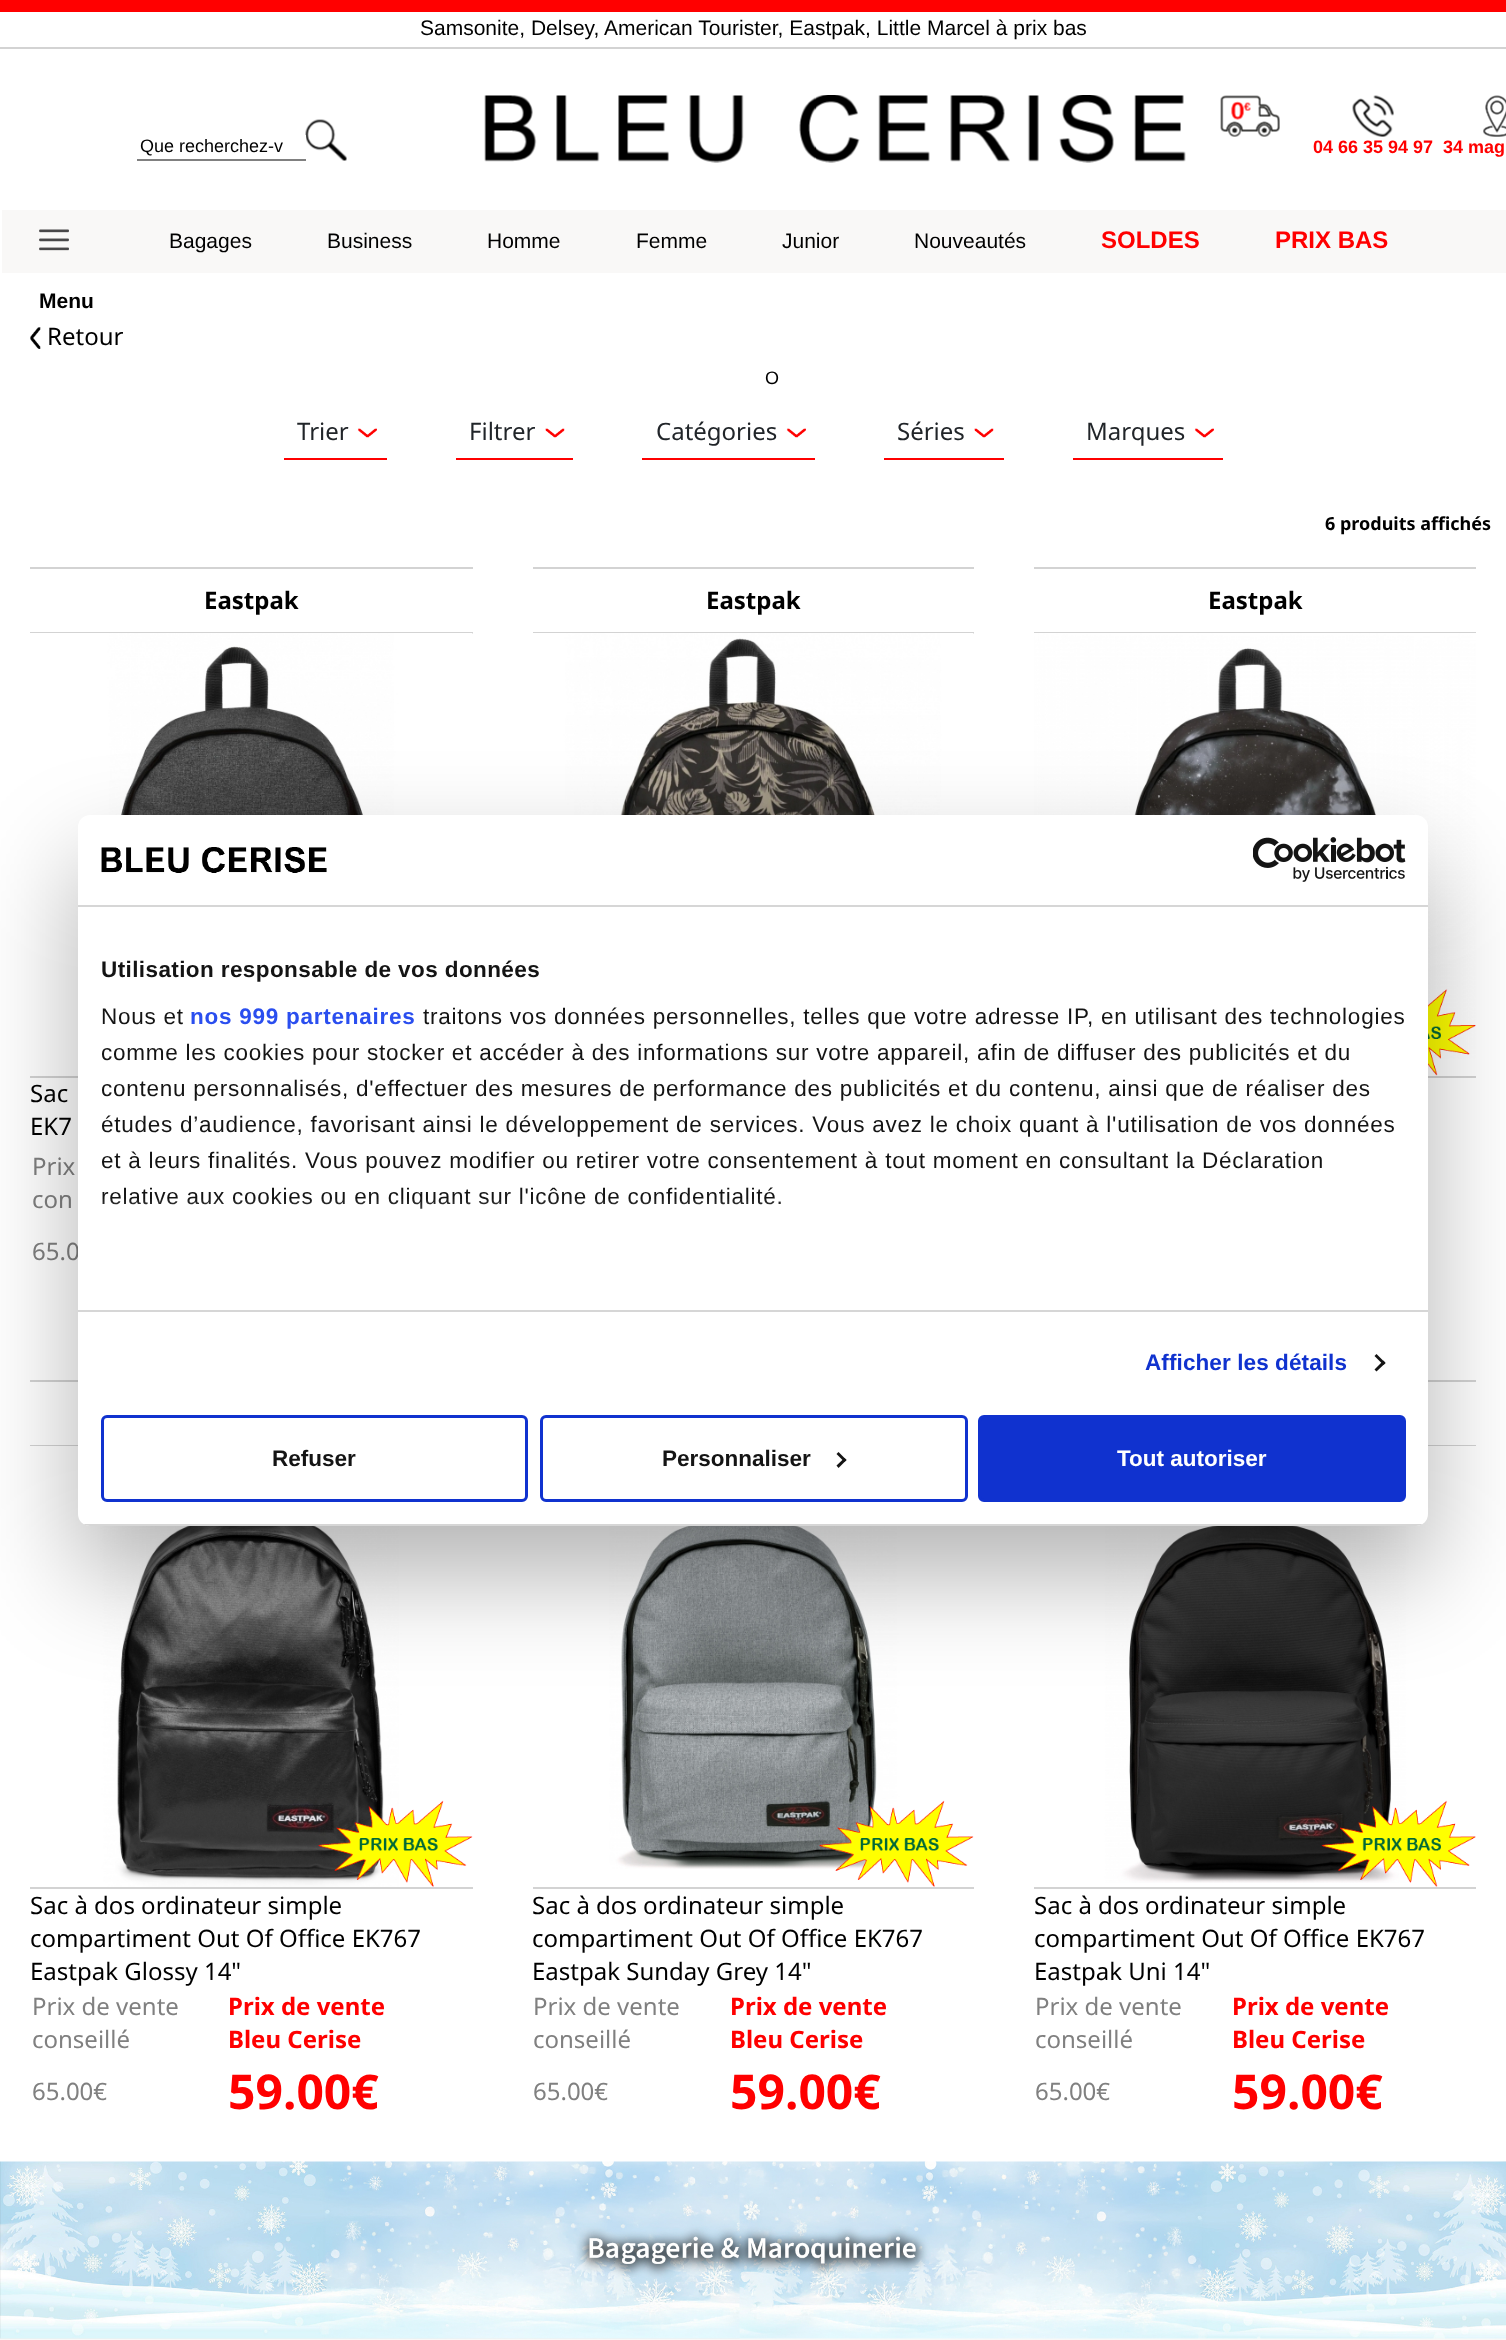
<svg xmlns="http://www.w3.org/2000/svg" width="1506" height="2340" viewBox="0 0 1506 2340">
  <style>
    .t1 { font: 21px Liberation Sans; fill: #000; }
    .t2 { font: 18px Liberation Sans; fill: #000; }
    .t3 { font: bold 18px Liberation Sans; fill: #f00; }
    .t4 { font: bold 24px Liberation Sans; fill: #f00; }
    .t5 { font: bold 21px Liberation Sans; fill: #000; }
    .t6 { font: 24px Noto Sans; fill: #000; }
    .t7 { font: 24px Noto Sans; fill: #212529; }
    .t8 { font: bold 18px Noto Sans; fill: #000; }
    .t9 { font: bold 24px Noto Sans; fill: #000; }
    .t10 { font: 24px Noto Sans; fill: #808080; }
    .t11 { font: bold 24px Noto Sans; fill: #f00; }
    .t12 { font: bold 48px Noto Sans; fill: #f00; }
    .t13 { font: bold 22.5px Liberation Sans; letter-spacing: 0.4px; fill: #141414; }
    .t14 { font: 22.5px Liberation Sans; letter-spacing: 0.75px; fill: #141414; }
    .t15 { font: bold 22.5px Liberation Sans; letter-spacing: 0.75px; fill: #2a4eef; }
    .t16 { font: bold 22.5px Liberation Sans; letter-spacing: 0.1px; fill: #1032cf; }
    .t17 { font: bold 22.5px Liberation Sans; fill: #141414; }
    .t18 { font: bold 22.5px Liberation Sans; fill: #fff; }
  </style>
  <defs>
    <linearGradient id="g1" gradientUnits="userSpaceOnUse" x1="743" y1="1310" x2="743" y2="1197"><stop offset="0" stop-color="#fff"/><stop offset="0.5" stop-color="#fff" stop-opacity="0.8"/><stop offset="1" stop-color="#fff" stop-opacity="0"/></linearGradient>
    <clipPath id="clip1"><rect x="78" y="815" width="1350" height="711" rx="12"/></clipPath>
  </defs>
  <rect width="100%" height="100%" fill="#fff"/>
  <rect x="0" y="0" width="1506" height="12" fill="#f00"/>
  <rect x="0" y="47" width="1506" height="2" fill="#d3d3d3"/>
  <text x="420" y="35" class="t1">Samsonite, Delsey, American Tourister, Eastpak, Little Marcel à prix bas</text>
  <image x="305" y="119" width="42" height="42" href="images/1.png"/>
  <rect x="305" y="135" width="1" height="5" fill="#fff"/>
  <rect x="137" y="159" width="169" height="2" fill="#808080"/>
  <text x="140" y="152" class="t2">Que recherchez-v</text>
  <image x="484" y="95" width="702" height="68" href="images/2.png"/>
  <image x="1220" y="95" width="60" height="42" href="images/3.png"/>
  <image x="1352" y="95" width="42" height="42" href="images/4.png"/>
  <text x="1313" y="153" class="t3">04 66 35 94 97</text>
  <image x="1483" y="95" width="23" height="42" href="images/5.png"/>
  <text x="1443" y="153" class="t3">34 mag</text>
  <rect x="2" y="210" width="1504" height="63" fill="#f9f8f7"/>
  <text x="169" y="248" class="t1">Bagages</text>
  <text x="327" y="248" class="t1">Business</text>
  <text x="487" y="248" class="t1">Homme</text>
  <text x="636" y="248" class="t1">Femme</text>
  <text x="782" y="248" class="t1">Junior</text>
  <text x="914" y="248" class="t1">Nouveautés</text>
  <text x="1101" y="248" class="t4">SOLDES</text>
  <text x="1275" y="248" class="t4">PRIX BAS</text>
  <image x="39" y="229" width="30" height="22" href="images/6.png"/>
  <text x="39" y="308" class="t5">Menu</text>
  <image x="30" y="327" width="11" height="22" href="images/7.png"/>
  <text x="47" y="345" class="t6">Retour</text>
  <text x="765" y="384" class="t2">O</text>
  <rect x="284" y="458" width="103" height="2" fill="#f00"/>
  <text x="297" y="440" class="t7">Trier</text>
  <image x="357" y="428" width="20" height="10" href="images/8.png"/>
  <rect x="456" y="458" width="117" height="2" fill="#f00"/>
  <text x="469" y="440" class="t7">Filtrer</text>
  <image x="545" y="428" width="20" height="10" href="images/9.png"/>
  <rect x="642" y="458" width="173" height="2" fill="#f00"/>
  <text x="656" y="440" class="t7">Catégories</text>
  <image x="786" y="428" width="20" height="10" href="images/8.png"/>
  <rect x="884" y="458" width="120" height="2" fill="#f00"/>
  <text x="897" y="440" class="t7">Séries</text>
  <image x="974" y="428" width="20" height="10" href="images/9.png"/>
  <rect x="1073" y="458" width="150" height="2" fill="#f00"/>
  <text x="1086" y="440" class="t7">Marques</text>
  <image x="1194" y="428" width="20" height="10" href="images/8.png"/>
  <text x="1325" y="530" class="t8">6 produits affichés</text>
  <rect x="30" y="567" width="443" height="2" fill="#d3d3d3"/>
  <rect x="30" y="632" width="443" height="2" fill="#d3d3d3"/>
  <text x="204" y="609" class="t9">Eastpak</text>
  <image x="30" y="633" width="443" height="425" href="images/10.png"/>
  <rect x="30" y="1076" width="48" height="2" fill="#d3d3d3"/>
  <text x="30" y="1102" class="t6">Sac</text>
  <text x="30" y="1135" class="t6">EK7</text>
  <text x="32" y="1175" class="t10">Prix</text>
  <text x="32" y="1208" class="t10">con</text>
  <text x="32" y="1260" class="t10">65.0</text>
  <rect x="533" y="567" width="441" height="2" fill="#d3d3d3"/>
  <rect x="533" y="632" width="441" height="2" fill="#d3d3d3"/>
  <text x="706" y="609" class="t9">Eastpak</text>
  <image x="533" y="633" width="441" height="182" href="images/11.png"/>
  <rect x="1034" y="567" width="442" height="2" fill="#d3d3d3"/>
  <rect x="1034" y="632" width="442" height="1" fill="#d3d3d3"/>
  <text x="1208" y="609" class="t9">Eastpak</text>
  <image x="1034" y="633" width="442" height="426" href="images/12.png"/>
  <image x="1428" y="989" width="48" height="87" href="images/13.png"/>
  <rect x="1428" y="1076" width="48" height="2" fill="#d3d3d3"/>
  <rect x="30" y="1380" width="48" height="2" fill="#d3d3d3"/>
  <rect x="30" y="1445" width="48" height="1" fill="#d3d3d3"/>
  <image x="30" y="1446" width="443" height="441" href="images/14.png"/>
  <image x="318" y="1800" width="155" height="87" href="images/15.png"/>
  <rect x="30" y="1887" width="443" height="2" fill="#d3d3d3"/>
  <text x="30" y="1914" class="t6">Sac à dos ordinateur simple</text>
  <text x="30" y="1947" class="t6">compartiment Out Of Office EK767</text>
  <text x="30" y="1980" class="t6">Eastpak Glossy 14"</text>
  <text x="32" y="2015" class="t10">Prix de vente</text>
  <text x="32" y="2048" class="t10">conseillé</text>
  <text x="228" y="2015" class="t11">Prix de vente</text>
  <text x="228" y="2048" class="t11">Bleu Cerise</text>
  <text x="32" y="2100" class="t10">65.00€</text>
  <text x="228" y="2109" class="t12">59.00€</text>
  <image x="533" y="1526" width="441" height="343" href="images/16.png"/>
  <image x="819" y="1800" width="155" height="87" href="images/17.png"/>
  <rect x="533" y="1887" width="441" height="2" fill="#d3d3d3"/>
  <text x="532" y="1914" class="t6">Sac à dos ordinateur simple</text>
  <text x="532" y="1947" class="t6">compartiment Out Of Office EK767</text>
  <text x="532" y="1980" class="t6">Eastpak Sunday Grey 14"</text>
  <text x="533" y="2015" class="t10">Prix de vente</text>
  <text x="533" y="2048" class="t10">conseillé</text>
  <text x="730" y="2015" class="t11">Prix de vente</text>
  <text x="730" y="2048" class="t11">Bleu Cerise</text>
  <text x="533" y="2100" class="t10">65.00€</text>
  <text x="730" y="2109" class="t12">59.00€</text>
  <rect x="1428" y="1380" width="48" height="2" fill="#d3d3d3"/>
  <rect x="1428" y="1445" width="48" height="1" fill="#d3d3d3"/>
  <image x="1034" y="1446" width="442" height="437" href="images/18.png"/>
  <image x="1321" y="1800" width="155" height="87" href="images/19.png"/>
  <rect x="1034" y="1887" width="442" height="2" fill="#d3d3d3"/>
  <text x="1034" y="1914" class="t6">Sac à dos ordinateur simple</text>
  <text x="1034" y="1947" class="t6">compartiment Out Of Office EK767</text>
  <text x="1034" y="1980" class="t6">Eastpak Uni 14"</text>
  <text x="1035" y="2015" class="t10">Prix de vente</text>
  <text x="1035" y="2048" class="t10">conseillé</text>
  <text x="1232" y="2015" class="t11">Prix de vente</text>
  <text x="1232" y="2048" class="t11">Bleu Cerise</text>
  <text x="1035" y="2100" class="t10">65.00€</text>
  <text x="1232" y="2109" class="t12">59.00€</text>
  <rect x="78" y="863" width="1350" height="711" rx="12" fill="#0000004d" filter="blur(51px)"/>
  <rect x="78" y="815" width="1350" height="711" rx="12" fill="#fff"/>
  <rect x="78" y="905" width="1350" height="2" fill="#d6d6d6"/>
  <image x="101" y="847" width="226" height="26" href="images/20.png"/>
  <image x="1253" y="837" width="153" height="45" href="images/21.png"/>
  <rect x="78" y="1310" width="1350" height="2" fill="#d6d6d6"/>
  <text x="101" y="977" class="t13">Utilisation responsable de vos données</text>
  <text x="101" y="1024" class="t14">Nous et</text>
  <text x="190" y="1024" class="t15">nos 999 partenaires</text>
  <text x="423" y="1024" class="t14">traitons vos données personnelles, telles que votre adresse IP, en utilisant des technologies</text>
  <text x="101" y="1060" class="t14">comme les cookies pour stocker et accéder à des informations sur votre appareil, afin de diffuser des publicités et du</text>
  <text x="101" y="1096" class="t14">contenu personnalisés, d'effectuer des mesures de performance des publicités et du contenu, ainsi que de réaliser des</text>
  <text x="101" y="1132" class="t14">études d’audience, favorisant ainsi le développement de services. Vous avez le choix quant à l'utilisation de vos données</text>
  <text x="101" y="1168" class="t14">et à leurs finalités. Vous pouvez modifier ou retirer votre consentement à tout moment en consultant la Déclaration</text>
  <text x="101" y="1204" class="t14">relative aux cookies ou en cliquant sur l'icône de confidentialité.</text>
  <rect x="102" y="1199" width="678" height="10" fill="url(#g1)"/>
  <text x="1145" y="1370" class="t16">Afficher les détails</text>
  <path d="M1376.5 1354L1385.5 1363L1383.5 1365L1374.5 1356Z" fill="#141414"/>
  <path d="M1383.5 1360.5L1385.5 1363L1376.5 1371.5L1374.5 1369.5Z" fill="#141414"/>
  <g clip-path="url(#clip1)">
    <rect x="78" y="1524" width="1350" height="2" fill="#d6d6d6"/>
  </g>
  <rect x="102.5" y="1416.5" width="424" height="84" rx="4.5" fill="none" stroke="#1032cf" stroke-width="3"/>
  <text x="272" y="1466" class="t17">Refuser</text>
  <rect x="541.5" y="1416.5" width="425" height="84" rx="4.5" fill="none" stroke="#1032cf" stroke-width="3"/>
  <text x="662" y="1466" class="t17">Personnaliser</text>
  <path d="M838.5 1452L846.5 1460L844.5 1462L836.5 1454Z" fill="#141414"/>
  <path d="M844.5 1458L846.5 1460L838.5 1468L836.5 1465.5Z" fill="#141414"/>
  <rect x="979.5" y="1416.5" width="425" height="84" rx="4.5" fill="#1032cf" stroke="#1032cf" stroke-width="3"/>
  <text x="1117" y="1466" class="t18">Tout autoriser</text>
  <rect x="0" y="2338" width="1506" height="2" fill="#f9f8f7"/>
  <image x="0" y="2161" width="1506" height="178" href="images/22.png"/>
</svg>
